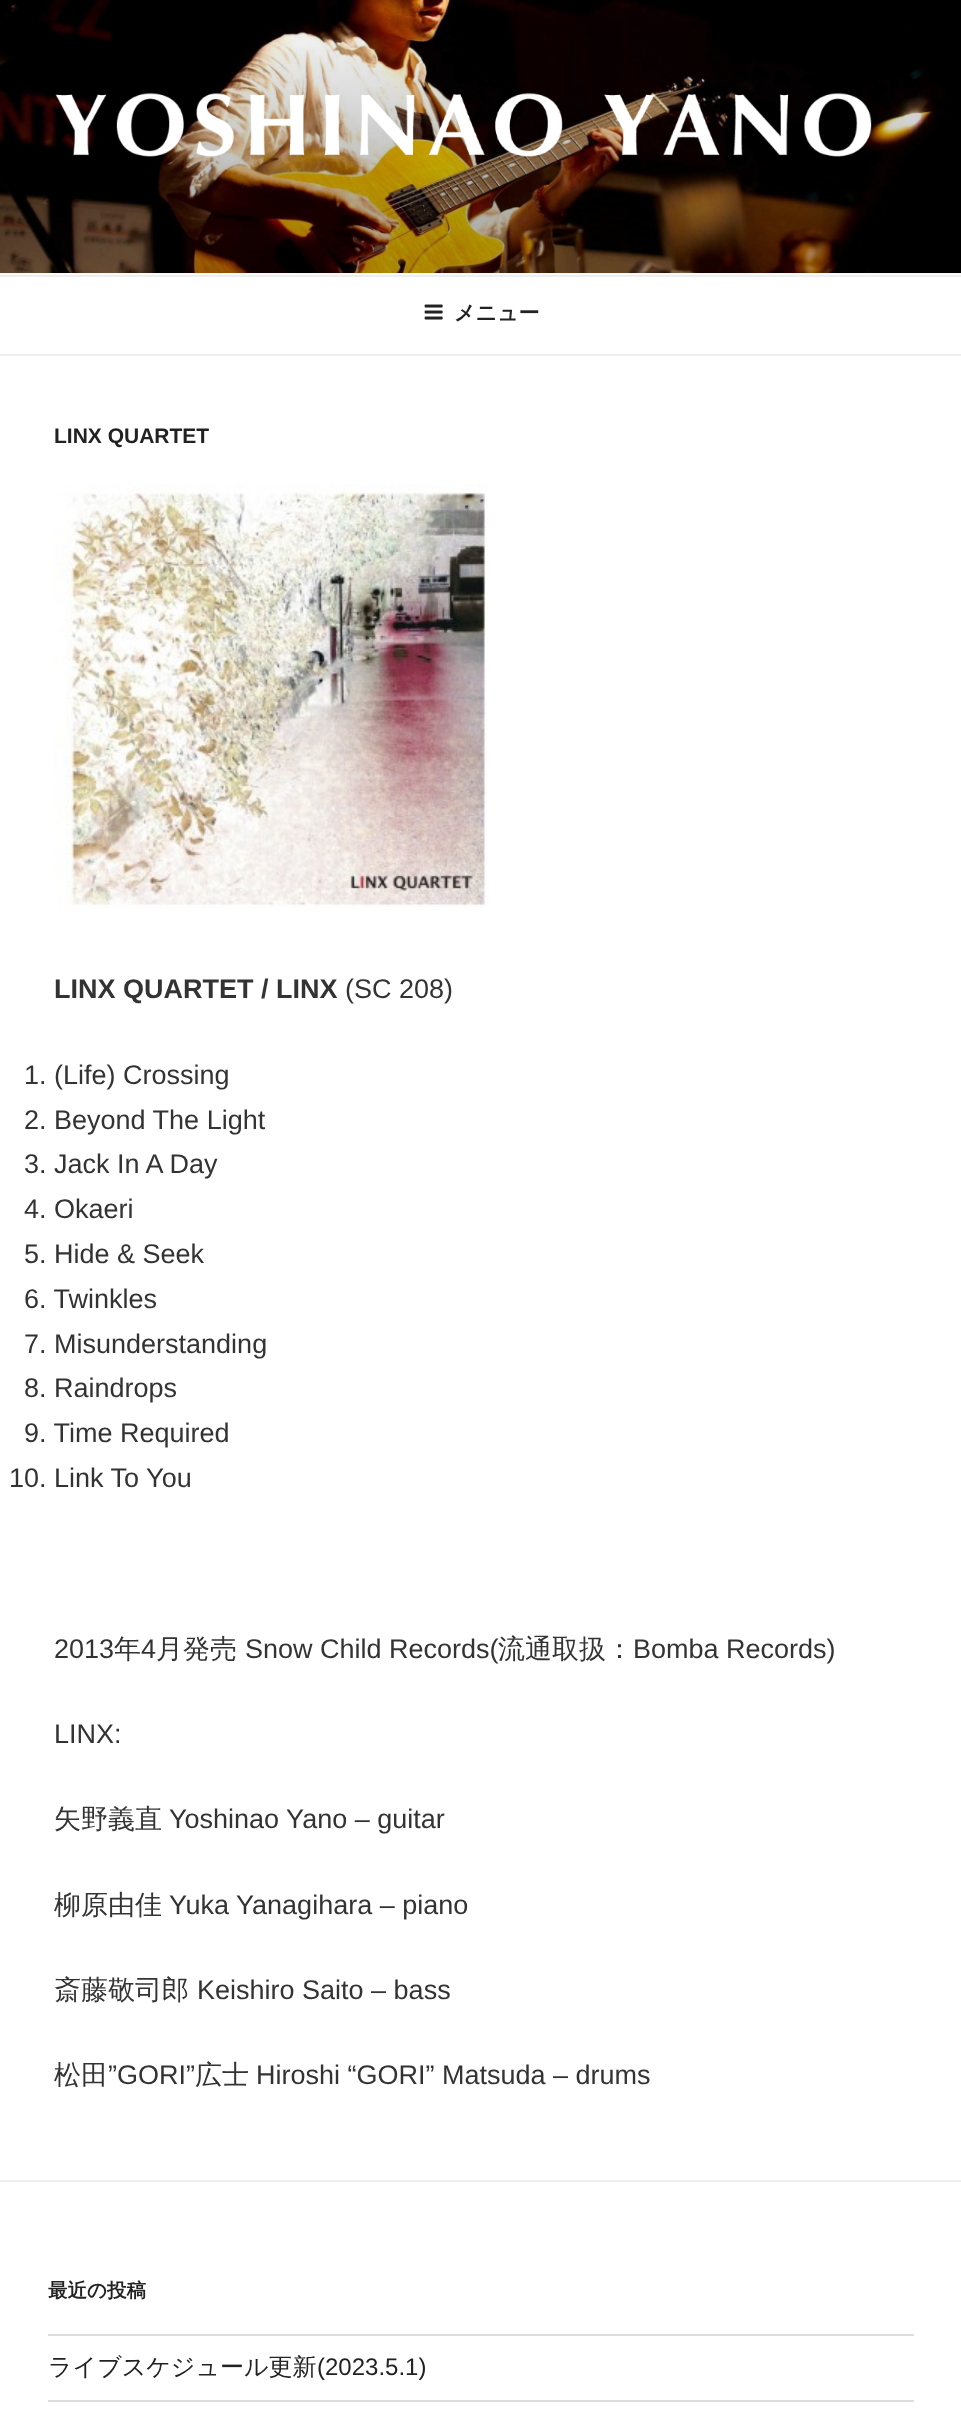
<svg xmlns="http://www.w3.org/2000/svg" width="961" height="2411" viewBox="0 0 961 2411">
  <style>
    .t1 { font: bold 21px WenQuanYi Zen Hei; fill: #222; }
    .t2 { font: bold 21px Liberation Sans; fill: #222; }
    .t3 { font: bold 27px Liberation Sans; fill: #333; }
    .t4 { font: 27px Liberation Sans; fill: #333; }
    .t5 { font: 500 27px WenQuanYi Zen Hei; fill: #333; }
    .t6 { font: bold 19.5px WenQuanYi Zen Hei; fill: #222; }
    .t7 { font: 500 24px WenQuanYi Zen Hei; fill: #222; }
    .t8 { font: 24px Liberation Sans; fill: #222; }
  </style>
  <rect width="100%" height="100%" fill="#fff"/>
  <rect x="0" y="273" width="961" height="2" fill="#fafafa"/>
  <image x="0" y="0" width="961" height="273" href="images/1.png"/>
  <image x="55" y="92" width="817" height="65" href="images/2.png"/>
  <rect x="0" y="275" width="961" height="2" fill="#eee"/>
  <rect x="0" y="354" width="961" height="2" fill="#eee"/>
  <image x="424" y="304" width="19" height="16" href="images/3.png"/>
  <text x="454" y="320" class="t1">メニュー</text>
  <text x="54" y="443" class="t2">LINX QUARTET</text>
  <image x="54" y="484" width="433" height="425" href="images/4.png"/>
  <text x="54" y="998" class="t3">LINX QUARTET / LINX</text>
  <text x="345" y="998" class="t4">(SC 208)</text>
  <text x="24" y="1084" class="t4">1. (Life) Crossing</text>
  <text x="24" y="1129" class="t4">2. Beyond The Light</text>
  <text x="24" y="1173" class="t4">3. Jack In A Day</text>
  <text x="24" y="1218" class="t4">4. Okaeri</text>
  <text x="24" y="1263" class="t4">5. Hide &amp; Seek</text>
  <text x="24" y="1308" class="t4">6. Twinkles</text>
  <text x="24" y="1353" class="t4">7. Misunderstanding</text>
  <text x="24" y="1397" class="t4">8. Raindrops</text>
  <text x="24" y="1442" class="t4">9. Time Required</text>
  <text x="9" y="1487" class="t4">10. Link To You</text>
  <text x="54" y="1658" class="t4">2013</text>
  <text x="114" y="1658" class="t5">年</text>
  <text x="141" y="1658" class="t4">4</text>
  <text x="156" y="1658" class="t5">月発売</text>
  <text x="245" y="1658" class="t4">Snow Child Records(</text>
  <text x="498" y="1658" class="t5">流通取扱：</text>
  <text x="633" y="1658" class="t4">Bomba Records)</text>
  <text x="54" y="1743" class="t4">LINX:</text>
  <text x="54" y="1828" class="t5">矢野義直</text>
  <text x="169" y="1828" class="t4">Yoshinao Yano – guitar</text>
  <text x="54" y="1914" class="t5">柳原由佳</text>
  <text x="169" y="1914" class="t4">Yuka Yanagihara – piano</text>
  <text x="54" y="1999" class="t5">斎藤敬司郎</text>
  <text x="197" y="1999" class="t4">Keishiro Saito – bass</text>
  <text x="54" y="2084" class="t5">松田</text>
  <text x="108" y="2084" class="t4">”GORI”</text>
  <text x="195" y="2084" class="t5">広士</text>
  <text x="256" y="2084" class="t4">Hiroshi “GORI” Matsuda – drums</text>
  <rect x="0" y="2180" width="961" height="2" fill="#eee"/>
  <text x="48" y="2297" class="t6">最近の投稿</text>
  <rect x="48" y="2334" width="866" height="2" fill="#ddd"/>
  <rect x="48" y="2400" width="866" height="2" fill="#ddd"/>
  <text x="48" y="2375" class="t7">ライブスケジュール更新</text>
  <text x="317" y="2375" class="t8">(2023.5.1)</text>
</svg>
